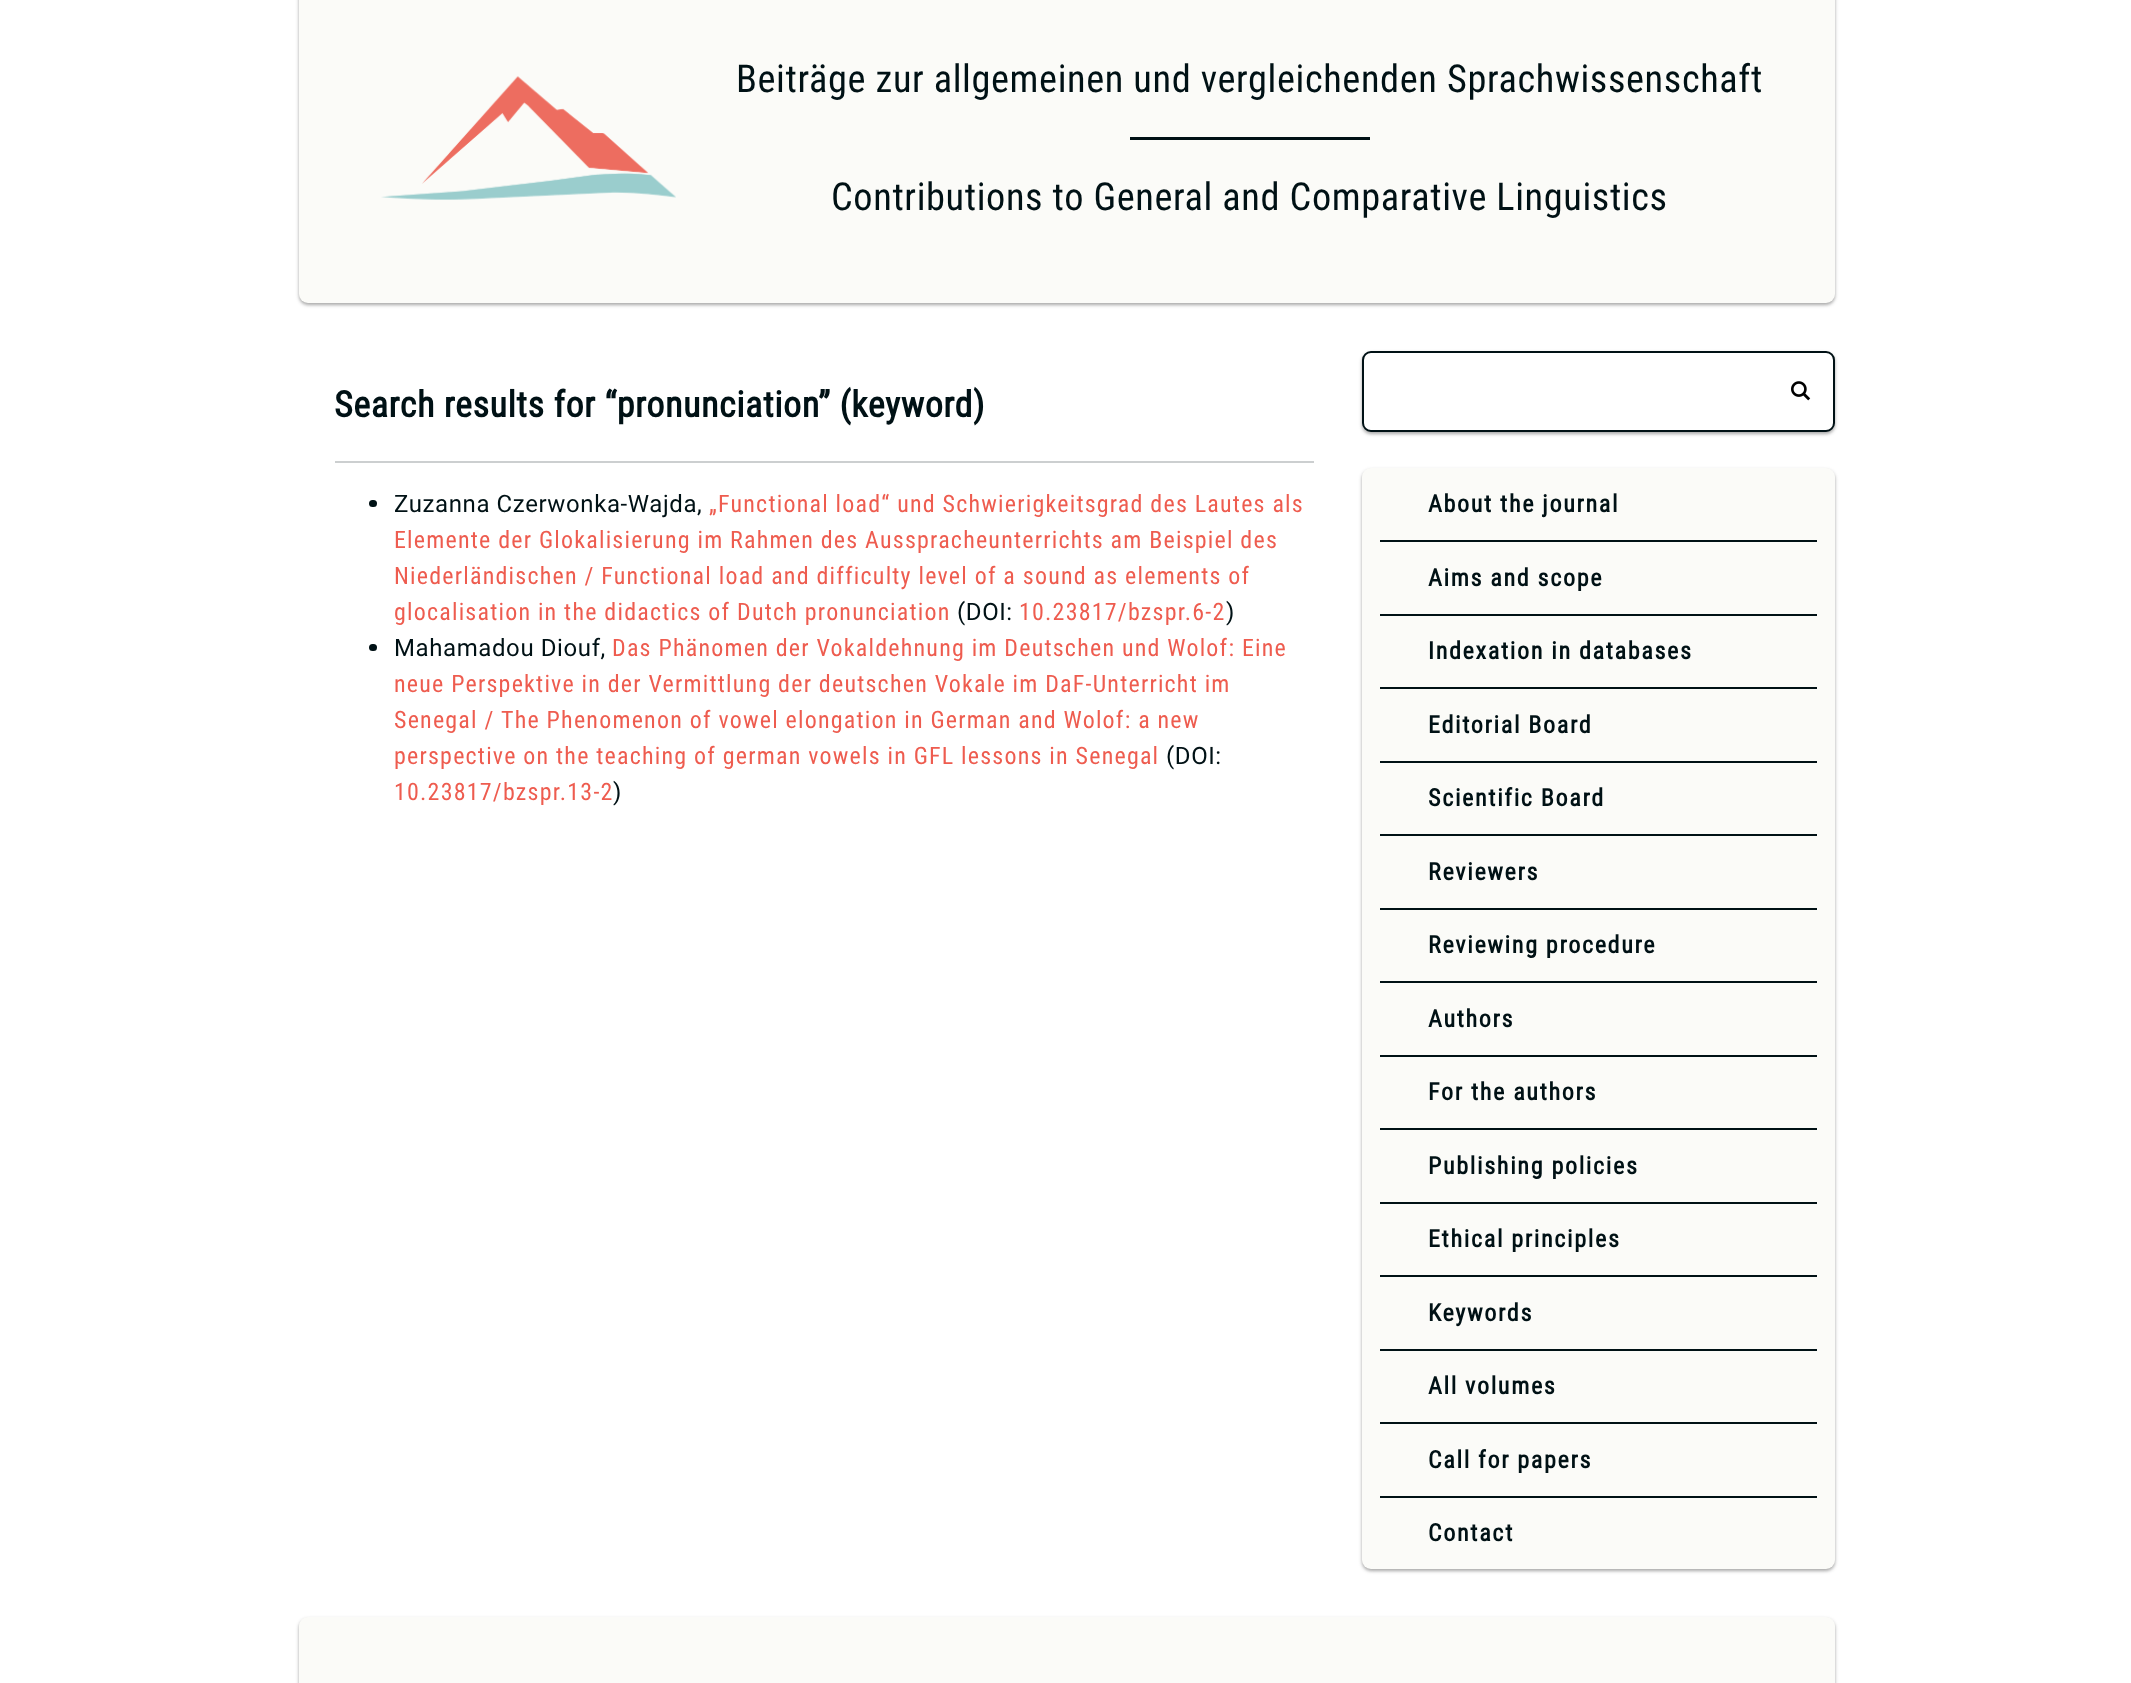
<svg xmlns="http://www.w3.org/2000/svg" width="2131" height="1683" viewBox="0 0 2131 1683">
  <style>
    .t1 { font: 38.4px Roboto Condensed; letter-spacing: 0.6px; fill: #001115; }
    .t2 { font: bold 36px Roboto Condensed; letter-spacing: 0.6px; fill: #001115; }
    .t3 { font: 24px Roboto; letter-spacing: 0.6px; fill: #001115; }
    .t4 { font: 24px Roboto Condensed; letter-spacing: 1.2px; fill: #ee5c4f; }
    .t5 { font: bold 24px Roboto Condensed; letter-spacing: 1.7px; fill: #001115; }
  </style>
  <rect width="100%" height="100%" fill="#fff"/>
  <rect x="299" y="-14" width="1536" height="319" rx="9" fill="#0000003d" filter="blur(1.5px)"/>
  <rect x="299" y="-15" width="1536" height="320" rx="9" fill="#0000001f" filter="blur(2px)"/>
  <rect x="299" y="-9" width="1536" height="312" rx="9" fill="#fbfbf8"/>
  <image x="381" y="76" width="295" height="124" href="images/1.png"/>
  <text x="736" y="92" class="t1">Beiträge zur allgemeinen und vergleichenden Sprachwissenschaft</text>
  <rect x="1130" y="137" width="240" height="3" fill="#001115"/>
  <text x="831" y="210" class="t1">Contributions to General and Comparative Linguistics</text>
  <text x="334" y="417" class="t2">Search results for “pronunciation” (keyword)</text>
  <rect x="335" y="461" width="979" height="2" fill="#cccfd0"/>
  <rect x="369" y="500" width="8" height="7" rx="3.5" fill="#001115"/>
  <text x="394" y="512" class="t3">Zuzanna Czerwonka-Wajda,</text>
  <text x="709" y="512" class="t4">„Functional load“ und Schwierigkeitsgrad des Lautes als</text>
  <text x="394" y="548" class="t4">Elemente der Glokalisierung im Rahmen des Ausspracheunterrichts am Beispiel des</text>
  <text x="394" y="584" class="t4">Niederländischen / Functional load and difficulty level of a sound as elements of</text>
  <text x="394" y="620" class="t4">glocalisation in the didactics of Dutch pronunciation</text>
  <text x="957" y="620" class="t3">(DOI:</text>
  <text x="1019" y="620" class="t4">10.23817/bzspr.6-2</text>
  <text x="1226" y="620" class="t3">)</text>
  <rect x="369" y="644" width="8" height="7" rx="3.5" fill="#001115"/>
  <text x="394" y="656" class="t3">Mahamadou Diouf,</text>
  <text x="612" y="656" class="t4">Das Phänomen der Vokaldehnung im Deutschen und Wolof: Eine</text>
  <text x="394" y="692" class="t4">neue Perspektive in der Vermittlung der deutschen Vokale im DaF-Unterricht im</text>
  <text x="394" y="728" class="t4">Senegal /</text>
  <text x="501" y="728" class="t4">The Phenomenon of vowel elongation in German and Wolof: a new</text>
  <text x="394" y="764" class="t4">perspective on the teaching of german vowels in GFL lessons in Senegal</text>
  <text x="1166" y="764" class="t3">(DOI:</text>
  <text x="394" y="800" class="t4">10.23817/bzspr.13-2</text>
  <text x="613" y="800" class="t3">)</text>
  <rect x="1362" y="353" width="473" height="81" rx="9" fill="#0000003d" filter="blur(1.5px)"/>
  <rect x="1362" y="353" width="473" height="81" rx="9" fill="#0000001f" filter="blur(2px)"/>
  <rect x="1363" y="352" width="471" height="79" rx="8" fill="#fff" stroke="#001115" stroke-width="2"/>
  <image x="1791" y="381" width="20" height="20" href="images/2.png"/>
  <rect x="1362" y="470" width="473" height="1101" rx="9" fill="#0000003d" filter="blur(1.5px)"/>
  <rect x="1362" y="470" width="473" height="1101" rx="9" fill="#0000001f" filter="blur(2px)"/>
  <rect x="1362" y="468" width="473" height="1101" rx="9" fill="#fbfbf8"/>
  <rect x="1380" y="540" width="437" height="2" fill="#001115"/>
  <text x="1428" y="512" class="t5">About the journal</text>
  <rect x="1380" y="614" width="437" height="2" fill="#001115"/>
  <text x="1428" y="586" class="t5">Aims and scope</text>
  <rect x="1380" y="687" width="437" height="2" fill="#001115"/>
  <text x="1428" y="659" class="t5">Indexation in databases</text>
  <rect x="1380" y="761" width="437" height="2" fill="#001115"/>
  <text x="1428" y="733" class="t5">Editorial Board</text>
  <rect x="1380" y="834" width="437" height="2" fill="#001115"/>
  <text x="1428" y="806" class="t5">Scientific Board</text>
  <rect x="1380" y="908" width="437" height="2" fill="#001115"/>
  <text x="1428" y="880" class="t5">Reviewers</text>
  <rect x="1380" y="981" width="437" height="2" fill="#001115"/>
  <text x="1428" y="953" class="t5">Reviewing procedure</text>
  <rect x="1380" y="1055" width="437" height="2" fill="#001115"/>
  <text x="1428" y="1027" class="t5">Authors</text>
  <rect x="1380" y="1128" width="437" height="2" fill="#001115"/>
  <text x="1428" y="1100" class="t5">For the authors</text>
  <rect x="1380" y="1202" width="437" height="2" fill="#001115"/>
  <text x="1428" y="1174" class="t5">Publishing policies</text>
  <rect x="1380" y="1275" width="437" height="2" fill="#001115"/>
  <text x="1428" y="1247" class="t5">Ethical principles</text>
  <rect x="1380" y="1349" width="437" height="2" fill="#001115"/>
  <text x="1428" y="1321" class="t5">Keywords</text>
  <rect x="1380" y="1422" width="437" height="2" fill="#001115"/>
  <text x="1428" y="1394" class="t5">All volumes</text>
  <rect x="1380" y="1496" width="437" height="2" fill="#001115"/>
  <text x="1428" y="1468" class="t5">Call for papers</text>
  <text x="1428" y="1541" class="t5">Contact</text>
  <rect x="299" y="1619" width="1536" height="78" rx="9" fill="#0000003d" filter="blur(1.5px)"/>
  <rect x="299" y="1619" width="1536" height="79" rx="9" fill="#0000001f" filter="blur(2px)"/>
  <rect x="299" y="1617" width="1536" height="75" rx="9" fill="#fbfbf8"/>
</svg>
